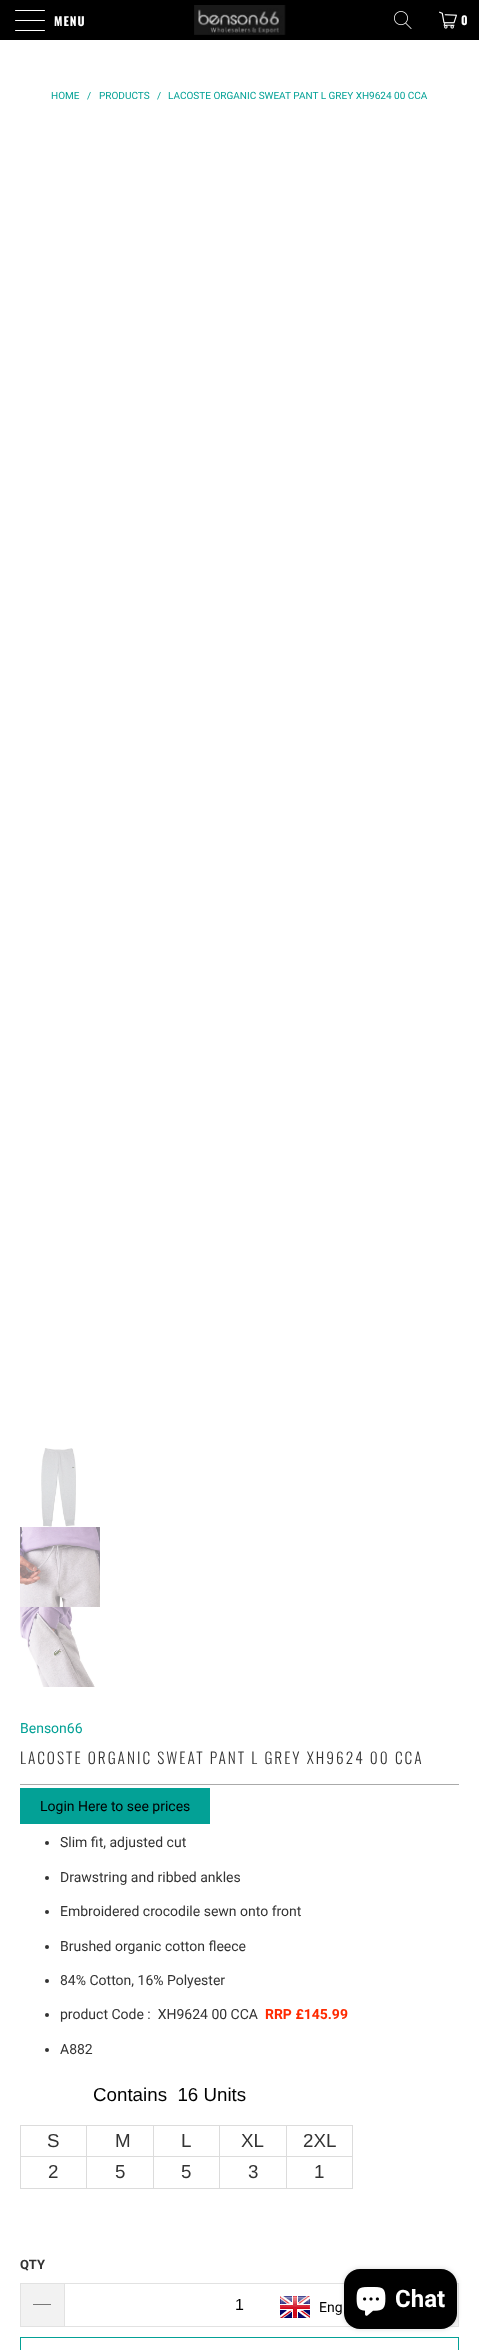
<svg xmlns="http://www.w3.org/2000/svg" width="479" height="2350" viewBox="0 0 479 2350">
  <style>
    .t1 { font: bold 12px Oswald; letter-spacing: 1px; fill: #fff; }
    .t2 { font: 10px Roboto; fill: #03a196; }
    .t3 { font: 14px Roboto; fill: #03a196; }
    .t4 { font: 300 15.4px Oswald; letter-spacing: 2px; fill: #333; }
    .t5 { font: 14px Roboto; fill: #000; }
    .t6 { font: 14px Roboto; fill: #333; }
    .t7 { font: bold 14px Roboto; fill: #ff2a00; }
    .t8 { font: 18.75px Liberation Sans; fill: #000; }
    .t9 { font: 18.75px Liberation Sans; fill: #333; }
    .t10 { font: bold 13px Roboto; fill: #333; }
    .t11 { font: 16px Liberation Sans; fill: #000; }
    .t12 { font: bold 24px Roboto; fill: #fff; }
  </style>
  <rect width="100%" height="100%" fill="#fff"/>
  <rect x="0" y="0" width="479" height="40" fill="#000"/>
  <rect x="15" y="10" width="30" height="1" rx="0.5" fill="#fff"/>
  <rect x="15" y="20" width="30" height="1" rx="0.5" fill="#fff"/>
  <rect x="15" y="30" width="30" height="1" rx="0.5" fill="#fff"/>
  <text x="54" y="26" class="t1">MENU</text>
  <image x="194" y="5" width="92" height="30" href="images/1.png"/>
  <image x="394" y="11" width="18" height="18" href="images/2.png"/>
  <image x="439" y="11" width="18" height="18" href="images/3.png"/>
  <text x="461" y="25" class="t1">0</text>
  <text x="51" y="99" class="t2">HOME</text>
  <text x="87" y="99" class="t2">/</text>
  <text x="99" y="99" class="t2">PRODUCTS</text>
  <text x="157" y="99" class="t2">/</text>
  <text x="168" y="99" class="t2">LACOSTE ORGANIC SWEAT PANT L GREY XH9624 00 CCA</text>
  <image x="41" y="1448" width="35" height="79" href="images/4.png"/>
  <image x="20" y="1527" width="80" height="80" href="images/5.png"/>
  <image x="20" y="1607" width="75" height="80" href="images/6.png"/>
  <text x="20" y="1733" class="t3">Benson66</text>
  <text x="20" y="1764" class="t4">LACOSTE ORGANIC SWEAT PANT L GREY XH9624 00 CCA</text>
  <rect x="20" y="1784" width="439" height="1" fill="#aaa"/>
  <rect x="20" y="1788" width="190" height="36" fill="#03a196"/>
  <text x="40" y="1811" class="t5">Login Here to see prices</text>
  <circle cx="47" cy="1843" r="2" fill="#333"/>
  <text x="60" y="1847" class="t6">Slim fit, adjusted cut</text>
  <circle cx="47" cy="1878" r="2" fill="#333"/>
  <text x="60" y="1882" class="t6">Drawstring and ribbed ankles</text>
  <circle cx="47" cy="1912" r="2" fill="#333"/>
  <text x="60" y="1916" class="t6">Embroidered crocodile sewn onto front</text>
  <circle cx="47" cy="1947" r="2" fill="#333"/>
  <text x="60" y="1951" class="t6">Brushed organic cotton fleece</text>
  <circle cx="47" cy="1981" r="2" fill="#333"/>
  <text x="60" y="1985" class="t6">84% Cotton, 16% Polyester</text>
  <circle cx="47" cy="2015" r="2" fill="#333"/>
  <text x="60" y="2019" class="t6" xml:space="preserve">product Code :  XH9624 00 CCA</text>
  <text x="265" y="2019" class="t7">RRP £145.99</text>
  <circle cx="47" cy="2050" r="2" fill="#333"/>
  <text x="60" y="2054" class="t6">A882</text>
  <text x="93" y="2101" class="t8" xml:space="preserve">Contains  16 Units</text>
  <rect x="20" y="2125" width="333" height="1" fill="#dcdcdc"/>
  <rect x="20" y="2156" width="333" height="1" fill="#dcdcdc"/>
  <text x="47" y="2147" class="t9">S</text>
  <text x="115" y="2147" class="t9">M</text>
  <text x="181" y="2147" class="t9">L</text>
  <text x="241" y="2147" class="t9">XL</text>
  <text x="303" y="2147" class="t9">2XL</text>
  <rect x="20" y="2188" width="333" height="1" fill="#dcdcdc"/>
  <rect x="86" y="2125" width="1" height="64" fill="#dcdcdc"/>
  <rect x="20" y="2125" width="1" height="64" fill="#dcdcdc"/>
  <text x="48" y="2178" class="t9">2</text>
  <rect x="153" y="2125" width="1" height="64" fill="#dcdcdc"/>
  <text x="115" y="2178" class="t9">5</text>
  <rect x="219" y="2125" width="1" height="64" fill="#dcdcdc"/>
  <text x="181" y="2178" class="t9">5</text>
  <rect x="286" y="2125" width="1" height="64" fill="#dcdcdc"/>
  <text x="248" y="2178" class="t9">3</text>
  <rect x="352" y="2125" width="1" height="64" fill="#dcdcdc"/>
  <text x="314" y="2178" class="t9">1</text>
  <text x="20" y="2269" class="t10">QTY</text>
  <rect x="21" y="2284" width="43" height="42" fill="#f2f2f2"/>
  <rect x="20" y="2283" width="44" height="1" fill="#e2e2e2"/>
  <rect x="20" y="2326" width="44" height="1" fill="#e2e2e2"/>
  <rect x="20" y="2283" width="1" height="44" fill="#e2e2e2"/>
  <path d="M33 2304H51V2304.5H33Z" fill="#000"/>
  <rect x="64.5" y="2283.5" width="350" height="43" fill="none" stroke="#e2e2e2"/>
  <text x="235" y="2310" class="t11">1</text>
  <rect x="450" y="2284" width="8" height="42" fill="#f2f2f2"/>
  <rect x="456" y="2283" width="3" height="1" fill="#e2e2e2"/>
  <rect x="458" y="2283" width="1" height="44" fill="#e2e2e2"/>
  <rect x="448" y="2326" width="11" height="1" fill="#e2e2e2"/>
  <rect x="20.5" y="2337.5" width="438" height="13" fill="none" stroke="#03a196"/>
  <rect x="274" y="2289" width="180" height="36" rx="5" fill="#fff"/>
  <image x="280" y="2296" width="30" height="22" href="images/7.png"/>
  <text x="319" y="2312" class="t5">Eng</text>
  <rect x="344" y="2269" width="113" height="60" rx="16" fill="#00000026" filter="blur(2.5px)"/>
  <rect x="344" y="2269" width="113" height="60" rx="16" fill="#000"/>
  <image x="356" y="2287" width="30" height="29" href="images/8.png"/>
  <text x="395" y="2307" class="t12">Chat</text>
</svg>
